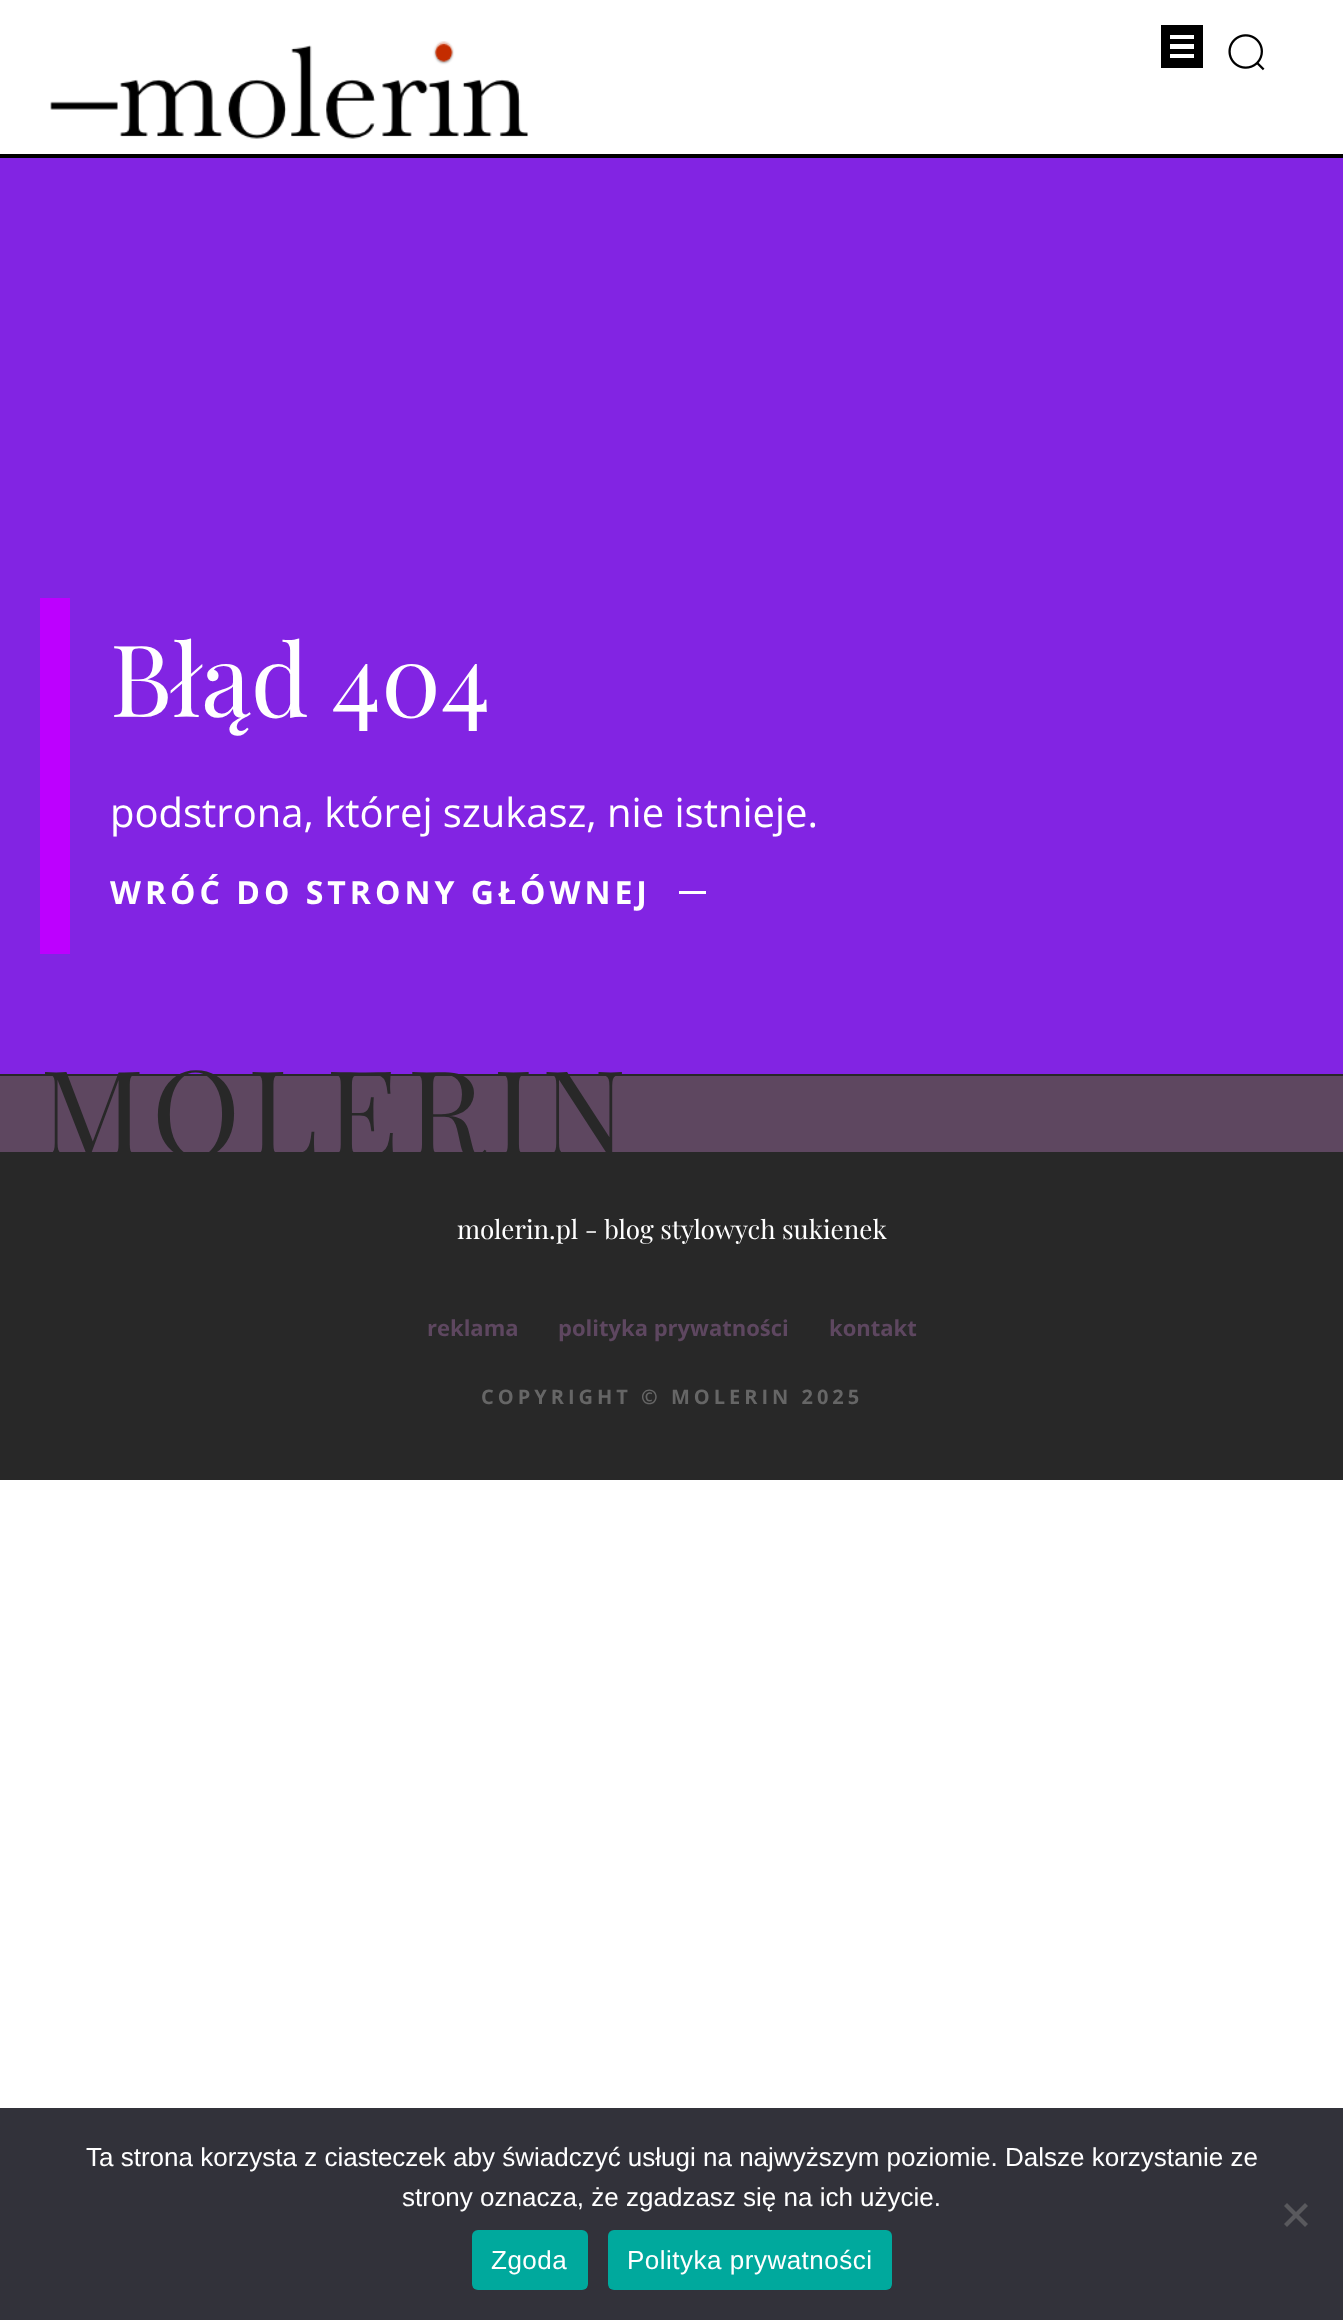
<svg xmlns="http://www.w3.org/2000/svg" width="1343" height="2320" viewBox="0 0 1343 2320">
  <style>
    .t1 { font: 100px Playfair Display; fill: #fff; }
    .t2 { font: 40px Open Sans; fill: #fff; }
    .t3 { font: bold 32px Open Sans; letter-spacing: 4px; fill: #fff; }
    .t4 { font: 120px Playfair Display; letter-spacing: 8px; fill: #282828; }
    .t5 { font: 26px Playfair Display; fill: #fff; }
    .t6 { font: bold 22px Open Sans; fill: #5e4760; }
    .t7 { font: bold 20px Open Sans; letter-spacing: 4px; fill: #666; }
    .t8 { font: 26px Liberation Sans; fill: #fff; }
    .t9 { font: 26px Liberation Sans; letter-spacing: 0.5px; fill: #fff; }
  </style>
  <rect width="100%" height="100%" fill="#fff"/>
  <image x="50" y="41" width="479" height="98" href="images/1.png"/>
  <path d="M1161 25V68H1203V25ZM1194 58H1170V54H1194ZM1194 49H1170V44H1194ZM1194 39H1170V35H1194Z" fill="#000"/>
  <image x="1228" y="34" width="37" height="37" href="images/2.png"/>
  <rect x="0" y="154" width="1343" height="4" fill="#000"/>
  <rect x="0" y="158" width="1343" height="916" fill="#8224e3"/>
  <rect x="40" y="598" width="30" height="356" fill="#bd00ff"/>
  <text x="110" y="717" class="t1">Błąd 404</text>
  <text x="110" y="827" class="t2">podstrona, której szukasz, nie istnieje.</text>
  <text x="110" y="904" class="t3">WRÓĆ DO STRONY GŁÓWNEJ</text>
  <rect x="679" y="891" width="27" height="3" fill="#fff"/>
  <rect x="0" y="1076" width="1343" height="76" fill="#5e4760"/>
  <text x="40" y="1157" class="t4">MOLERIN</text>
  <rect x="0" y="1074" width="1343" height="2" fill="#282828"/>
  <rect x="0" y="1152" width="1343" height="328" fill="#282828"/>
  <text x="457" y="1239" class="t5">molerin.pl - blog stylowych sukienek</text>
  <text x="427" y="1336" class="t6">reklama</text>
  <text x="558" y="1336" class="t6">polityka prywatności</text>
  <text x="829" y="1336" class="t6">kontakt</text>
  <text x="481" y="1404" class="t7">COPYRIGHT © MOLERIN 2025</text>
  <rect x="0" y="2108" width="1343" height="212" fill="#32323a"/>
  <text x="86" y="2166" class="t8">Ta strona korzysta z ciasteczek aby świadczyć usługi na najwyższym poziomie. Dalsze korzystanie ze</text>
  <text x="402" y="2206" class="t8">strony oznacza, że zgadzasz się na ich użycie.</text>
  <path d="M1305 2203L1308 2206L1287 2227L1284 2224Z" fill="#59595d"/>
  <path d="M1284 2206L1287 2203L1308 2224L1305 2227Z" fill="#59595d"/>
  <rect x="472" y="2230" width="116" height="60" rx="6" fill="#00a99d"/>
  <text x="491" y="2269" class="t9">Zgoda</text>
  <rect x="608" y="2230" width="284" height="60" rx="6" fill="#00a99d"/>
  <text x="627" y="2269" class="t9">Polityka prywatności</text>
</svg>
